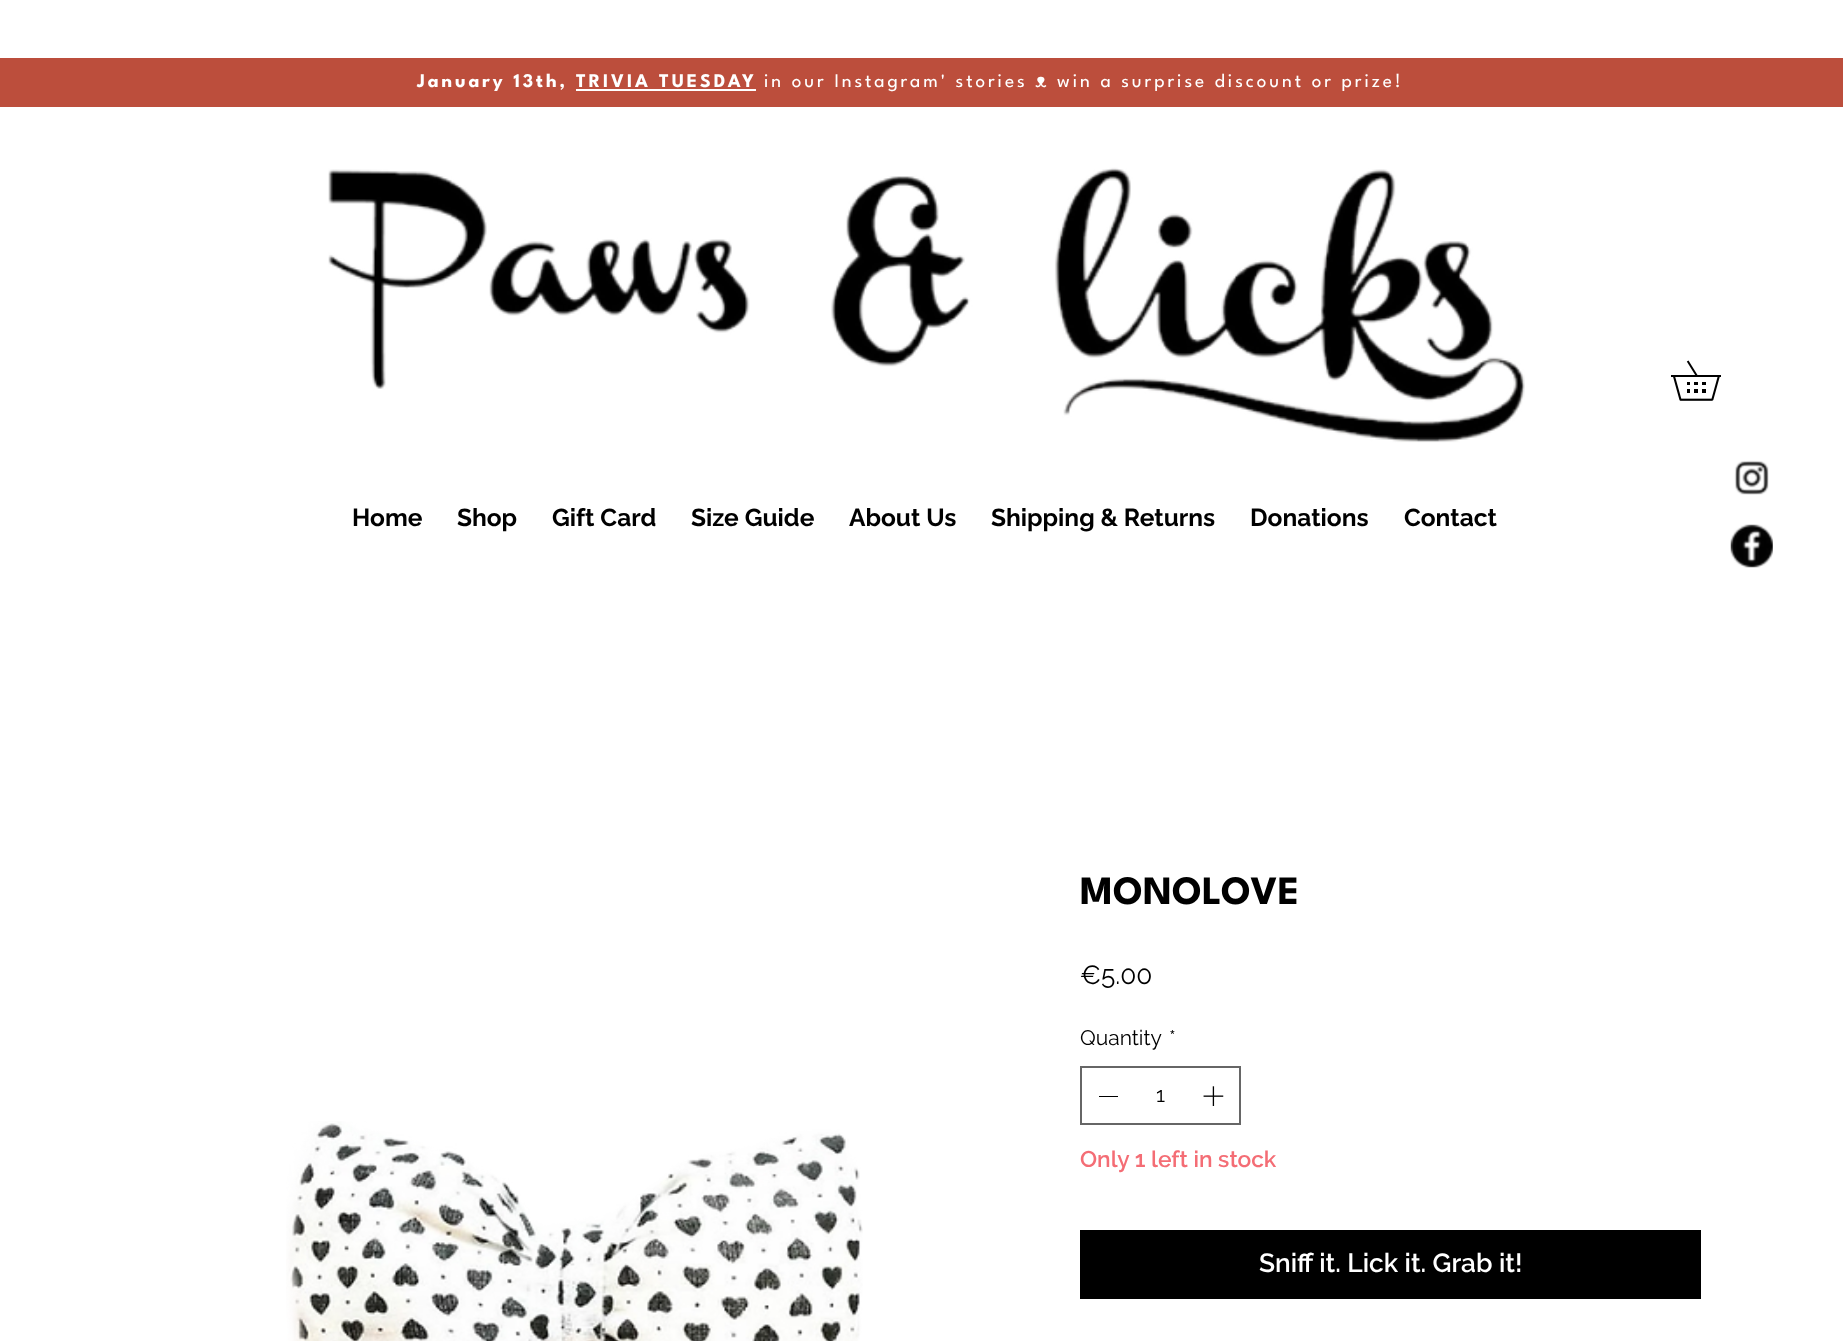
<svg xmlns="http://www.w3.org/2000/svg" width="1843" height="1341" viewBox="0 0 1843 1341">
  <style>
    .t1 { font: bold 19.25px League Spartan; letter-spacing: 2.9px; fill: #fff; }
    .t2 { font: 19.25px League Spartan; letter-spacing: 2.9px; fill: #fff; }
    .t3 { font: 19.25px Liberation Sans; letter-spacing: 2.9px; fill: #fff; }
    .t4 { font: bold 24.5px Raleway; fill: #000; }
    .t5 { font: bold 40.25px League Spartan; fill: #000; }
    .t6 { font: 26.25px Raleway; fill: #000; }
    .t7 { font: 21px Raleway; fill: #000; }
    .t8 { font: 600 22.75px Raleway; fill: #f46d75; }
    .t9 { font: 600 26.25px Raleway; fill: #fff; }
  </style>
  <rect width="100%" height="100%" fill="#fff"/>
  <rect x="0" y="58" width="1843" height="49" fill="#bc4e3c"/>
  <text x="417" y="87" class="t1">January 13th, TRIVIA TUESDAY</text>
  <rect x="576" y="89" width="180" height="2" fill="#fff"/>
  <text x="764" y="87" class="t2">in our Instagram' stories</text>
  <text x="1035" y="87" class="t3">ᴥ</text>
  <text x="1057" y="87" class="t2">win a surprise discount or prize!</text>
  <image x="328" y="167" width="1197" height="276" href="images/1.png"/>
  <image x="1671" y="360" width="50" height="41" href="images/2.png"/>
  <text x="352" y="526" class="t4">Home</text>
  <text x="457" y="526" class="t4">Shop</text>
  <text x="552" y="526" class="t4">Gift Card</text>
  <text x="691" y="526" class="t4">Size Guide</text>
  <text x="849" y="526" class="t4">About Us</text>
  <text x="991" y="526" class="t4">Shipping &amp; Returns</text>
  <text x="1250" y="526" class="t4">Donations</text>
  <text x="1404" y="526" class="t4">Contact</text>
  <image x="286" y="1121" width="577" height="220" href="images/3.png"/>
  <text x="1080" y="904" class="t5">MONOLOVE</text>
  <text x="1080" y="984" class="t6">€5.00</text>
  <text x="1080" y="1045" class="t7">Quantity</text>
  <text x="1169" y="1045" class="t7">*</text>
  <rect x="1081" y="1067" width="159" height="57" fill="none" stroke="#666" stroke-width="2"/>
  <rect x="1099" y="1096" width="19" height="1" fill="#000"/>
  <text x="1156" y="1102" class="t7">1</text>
  <image x="1203" y="1086" width="21" height="20" href="images/4.png"/>
  <text x="1080" y="1167" class="t8">Only 1 left in stock</text>
  <rect x="1080" y="1230" width="621" height="69" fill="#000"/>
  <text x="1259" y="1272" class="t9">Sniff it. Lick it. Grab it!</text>
  <image x="1734" y="460" width="35" height="35" href="images/5.png"/>
  <image x="1730" y="524" width="43" height="44" href="images/6.png"/>
</svg>
